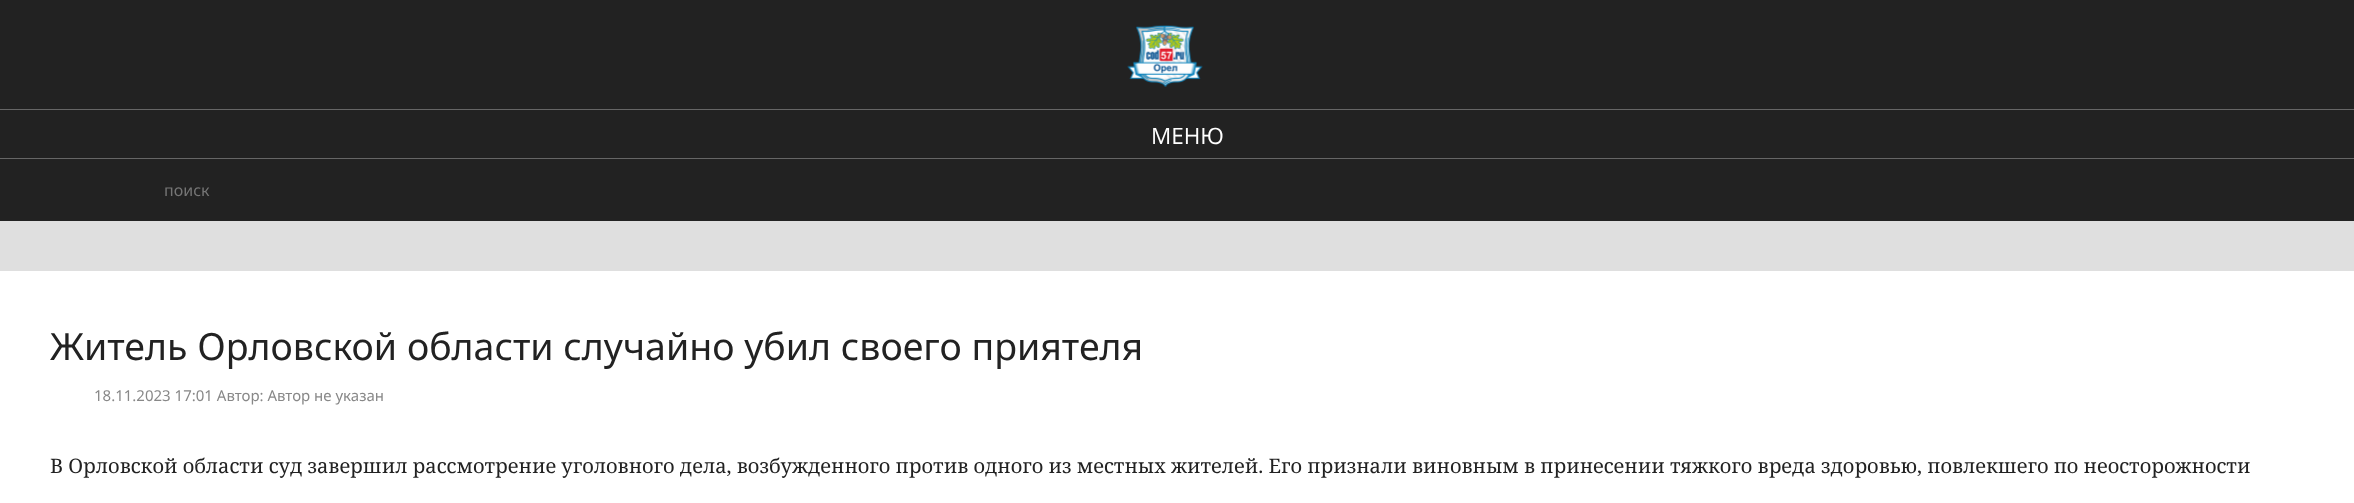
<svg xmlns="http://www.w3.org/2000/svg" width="2354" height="503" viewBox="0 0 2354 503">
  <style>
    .t1 { font: 22.5px Open Sans; fill: #fff; }
    .t2 { font: 16px Noto Sans; fill: #757575; }
    .t3 { font: 37.5px Noto Sans; fill: #222; }
    .t4 { font: 15px Noto Sans; fill: #888; }
    .t5 { font: 20px Noto Serif; fill: #222; }
  </style>
  <rect width="100%" height="100%" fill="#dfdfdf"/>
  <rect x="0" y="0" width="2354" height="221" fill="#222"/>
  <image x="1127" y="25" width="76" height="62" href="images/1.png"/>
  <rect x="0" y="109" width="2354" height="1" fill="#666"/>
  <rect x="0" y="158" width="2354" height="1" fill="#666"/>
  <text x="1151" y="144" class="t1">МЕНЮ</text>
  <text x="164" y="196" class="t2">поиск</text>
  <rect x="0" y="271" width="2354" height="232" fill="#fff"/>
  <text x="50" y="360" class="t3">Житель Орловской области случайно убил своего приятеля</text>
  <text x="94" y="401" class="t4">18.11.2023 17:01 Автор: Автор не указан</text>
  <text x="50" y="473" class="t5">В Орловской области суд завершил рассмотрение уголовного дела, возбужденного против одного из местных жителей. Его признали виновным в принесении тяжкого вреда здоровью, повлекшего по неосторожности</text>
</svg>
